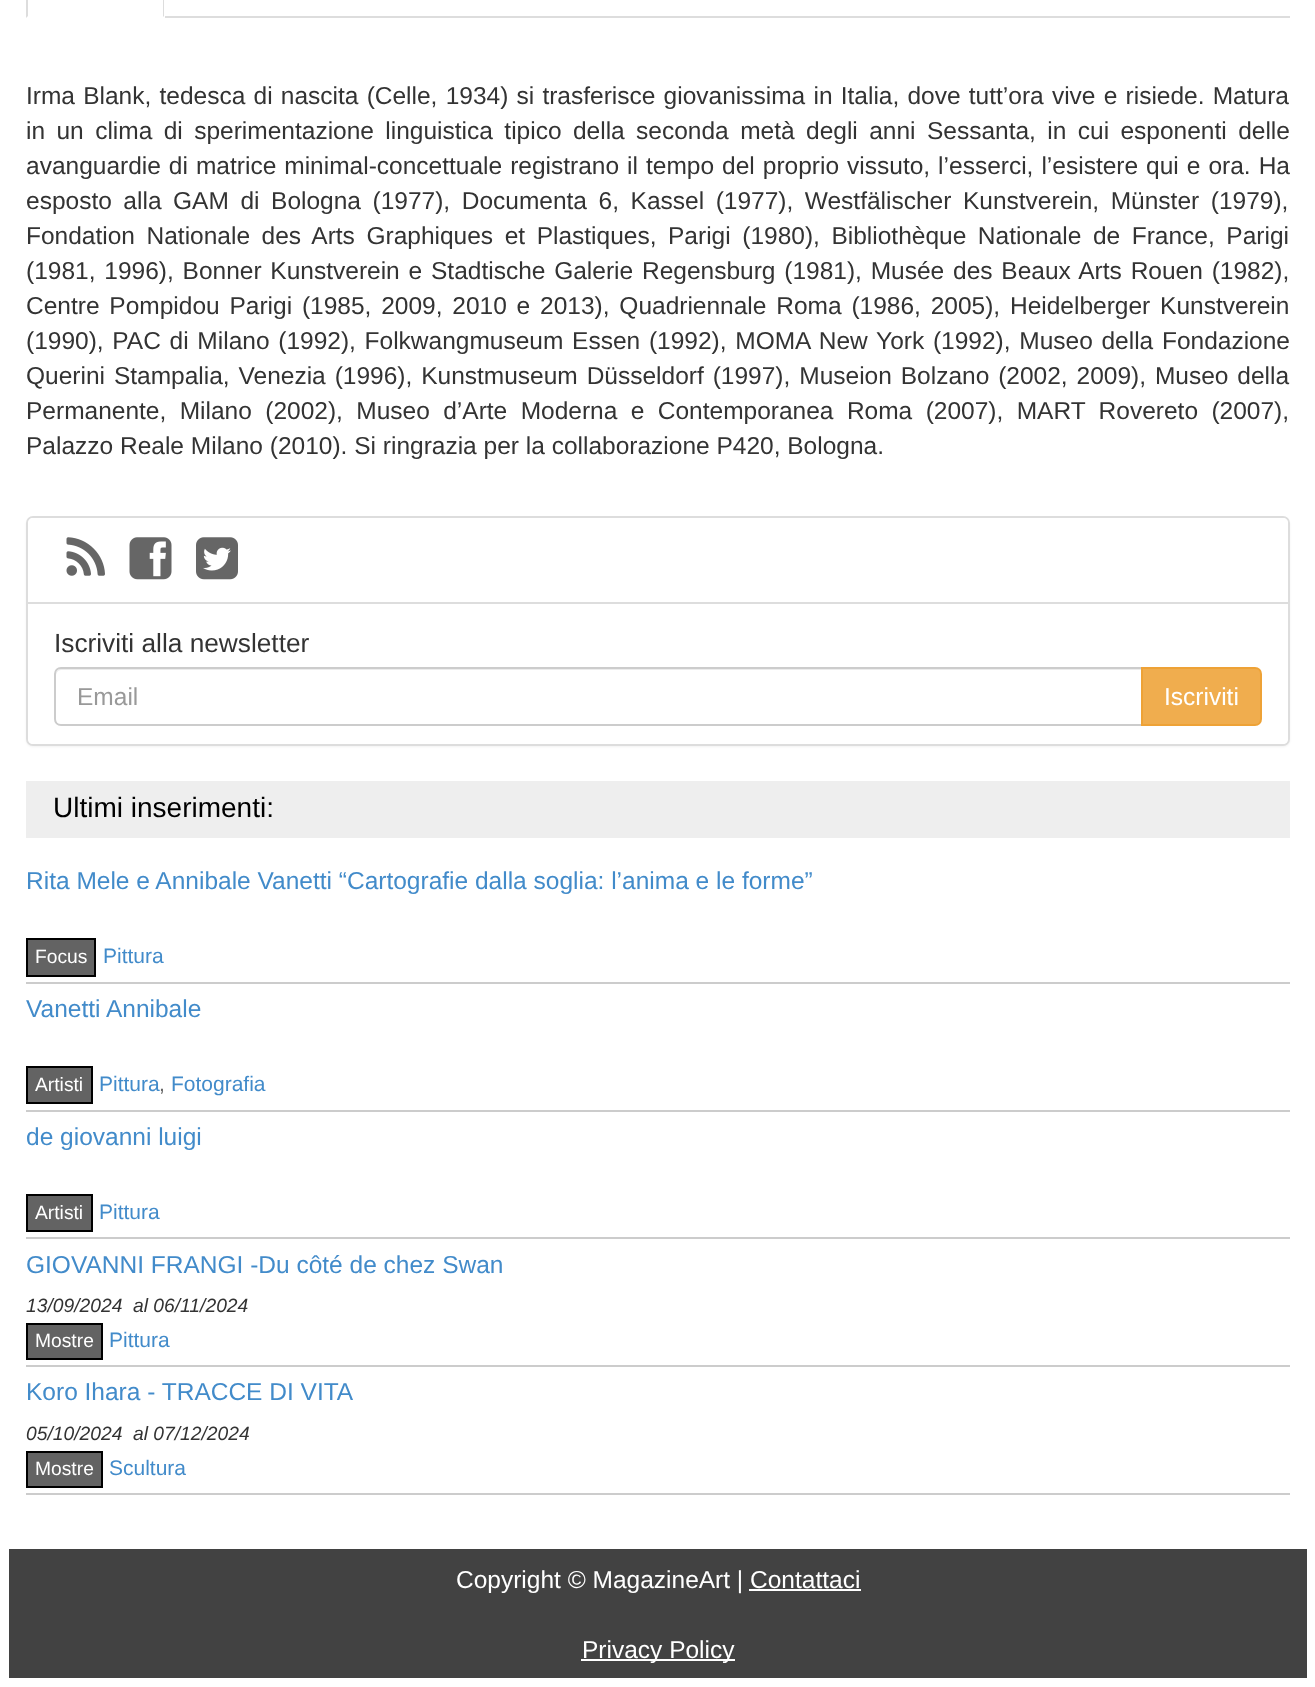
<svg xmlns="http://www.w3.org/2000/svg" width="1315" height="1687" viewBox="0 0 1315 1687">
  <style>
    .t1 { font: 24.5px Liberation Sans; fill: #333; }
    .t2 { font: 26.25px Liberation Sans; fill: #333; }
    .t3 { font: 24.5px Liberation Sans; fill: #999; }
    .t4 { font: 24.5px Liberation Sans; fill: #fff; }
    .t5 { font: 28px Liberation Sans; fill: #000; }
    .t6 { font: 24.5px Liberation Sans; fill: #428bca; }
    .t7 { font: 19.25px Liberation Sans; fill: #fff; }
    .t8 { font: 21px Liberation Sans; fill: #428bca; }
    .t9 { font: 21px Liberation Sans; fill: #666; }
    .t10 { font: italic 19.25px Liberation Sans; fill: #333; }
  </style>
  <rect width="100%" height="100%" fill="#fff"/>
  <rect x="165" y="16" width="1125" height="2" fill="#ddd"/>
  <path d="M162-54C163-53 164-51 164-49V17L163 16V-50L161-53Z" fill="#ddd"/>
  <path d="M26 18V-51L28-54L30-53L28-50V16Z" fill="#ddd"/>
  <text x="26" y="104" word-spacing="1.4" class="t1">Irma Blank, tedesca di nascita (Celle, 1934) si trasferisce giovanissima in Italia, dove tutt’ora vive e risiede. Matura</text>
  <text x="26" y="139" word-spacing="4.6" class="t1">in un clima di sperimentazione linguistica tipico della seconda metà degli anni Sessanta, in cui esponenti delle</text>
  <text x="26" y="174" word-spacing="1.2" class="t1">avanguardie di matrice minimal-concettuale registrano il tempo del proprio vissuto, l’esserci, l’esistere qui e ora. Ha</text>
  <text x="26" y="209" word-spacing="4.75" class="t1">esposto alla GAM di Bologna (1977), Documenta 6, Kassel (1977), Westfälischer Kunstverein, Münster (1979),</text>
  <text x="26" y="244" word-spacing="4.75" class="t1">Fondation Nationale des Arts Graphiques et Plastiques, Parigi (1980), Bibliothèque Nationale de France, Parigi</text>
  <text x="26" y="279" word-spacing="2" class="t1">(1981, 1996), Bonner Kunstverein e Stadtische Galerie Regensburg (1981), Musée des Beaux Arts Rouen (1982),</text>
  <text x="26" y="314" word-spacing="3" class="t1">Centre Pompidou Parigi (1985, 2009, 2010 e 2013), Quadriennale Roma (1986, 2005), Heidelberger Kunstverein</text>
  <text x="26" y="349" word-spacing="1.9" class="t1">(1990), PAC di Milano (1992), Folkwangmuseum Essen (1992), MOMA New York (1992), Museo della Fondazione</text>
  <text x="26" y="384" word-spacing="2.1" class="t1">Querini Stampalia, Venezia (1996), Kunstmuseum Düsseldorf (1997), Museion Bolzano (2002, 2009), Museo della</text>
  <text x="26" y="419" word-spacing="6.6" class="t1">Permanente, Milano (2002), Museo d’Arte Moderna e Contemporanea Roma (2007), MART Rovereto (2007),</text>
  <text x="26" y="454" class="t1">Palazzo Reale Milano (2010). Si ringrazia per la collaborazione P420, Bologna.</text>
  <rect x="26" y="518" width="1264" height="229" rx="7" fill="#0000000d" filter="blur(1px)"/>
  <rect x="27" y="517" width="1262" height="228" rx="6" fill="none" stroke="#ddd" stroke-width="2"/>
  <path d="M33 518H1283C1286 518 1288 520 1288 523V604H28V523C28 520 30 518 33 518Z" fill="#fff"/>
  <image x="66" y="537" width="39" height="39" href="images/1.png"/>
  <image x="129" y="537" width="43" height="43" href="images/2.png"/>
  <image x="196" y="537" width="42" height="43" href="images/3.png"/>
  <path d="M28 602H1288V739C1288 742 1286 744 1283 744H33C30 744 28 742 28 739Z" fill="#fff"/>
  <rect x="28" y="602" width="1260" height="2" fill="#ddd"/>
  <text x="54" y="652" class="t2">Iscriviti alla newsletter</text>
  <path d="M61 670H1141V669H61C58 669 56 671 56 674V676C56 673 58 670 61 670Z" fill="#ececec"/>
  <path d="M61 668H1142V725H61C57.5 725 55 722.5 55 719V674C55 670.5 57.5 668 61 668Z" fill="none" stroke="#ccc" stroke-width="2"/>
  <text x="77" y="705" class="t3">Email</text>
  <path d="M1142 668H1255C1258.5 668 1261 670.5 1261 674V719C1261 722.5 1258.5 725 1255 725H1142Z" fill="#f0ad4e" stroke="#eea236" stroke-width="2"/>
  <text x="1164" y="705" class="t4">Iscriviti</text>
  <rect x="26" y="781" width="1264" height="57" fill="#eee"/>
  <text x="53" y="817" class="t5">Ultimi inserimenti:</text>
  <rect x="26" y="982" width="1264" height="2" fill="#ccc"/>
  <text x="26" y="889" class="t6">Rita Mele e Annibale Vanetti “Cartografie dalla soglia: l’anima e le forme”</text>
  <rect x="27" y="939" width="68" height="37" fill="#636363" stroke="#000" stroke-width="2"/>
  <text x="35" y="963" class="t7">Focus</text>
  <text x="103" y="963" class="t8">Pittura</text>
  <rect x="26" y="1110" width="1264" height="2" fill="#ccc"/>
  <text x="26" y="1017" class="t6">Vanetti Annibale</text>
  <rect x="27" y="1067" width="65" height="36" fill="#636363" stroke="#000" stroke-width="2"/>
  <text x="35" y="1091" class="t7">Artisti</text>
  <text x="99" y="1091" class="t8">Pittura</text>
  <text x="159" y="1091" class="t9">,</text>
  <text x="171" y="1091" class="t8">Fotografia</text>
  <rect x="26" y="1237" width="1264" height="2" fill="#ccc"/>
  <text x="26" y="1145" class="t6">de giovanni luigi</text>
  <rect x="27" y="1195" width="65" height="36" fill="#636363" stroke="#000" stroke-width="2"/>
  <text x="35" y="1219" class="t7">Artisti</text>
  <text x="99" y="1219" class="t8">Pittura</text>
  <rect x="26" y="1365" width="1264" height="2" fill="#ccc"/>
  <text x="26" y="1273" class="t6">GIOVANNI FRANGI -Du côté de chez Swan</text>
  <text x="26" y="1312" class="t10">13/09/2024</text>
  <text x="133" y="1312" class="t10">al 06/11/2024</text>
  <rect x="27" y="1324" width="75" height="35" fill="#636363" stroke="#000" stroke-width="2"/>
  <text x="35" y="1347" class="t7">Mostre</text>
  <text x="109" y="1347" class="t8">Pittura</text>
  <rect x="26" y="1493" width="1264" height="2" fill="#ccc"/>
  <text x="26" y="1400" class="t6">Koro Ihara - TRACCE DI VITA</text>
  <text x="26" y="1440" class="t10">05/10/2024</text>
  <text x="133" y="1440" class="t10">al 07/12/2024</text>
  <rect x="27" y="1452" width="75" height="35" fill="#636363" stroke="#000" stroke-width="2"/>
  <text x="35" y="1475" class="t7">Mostre</text>
  <text x="109" y="1475" class="t8">Scultura</text>
  <rect x="9" y="1549" width="1298" height="129" fill="#424242"/>
  <text x="456" y="1588" class="t4">Copyright © MagazineArt | Contattaci</text>
  <rect x="749" y="1589" width="112" height="2" fill="#fff"/>
  <rect x="581" y="1659" width="154" height="2" fill="#fff"/>
  <text x="582" y="1658" class="t4">Privacy Policy</text>
</svg>
